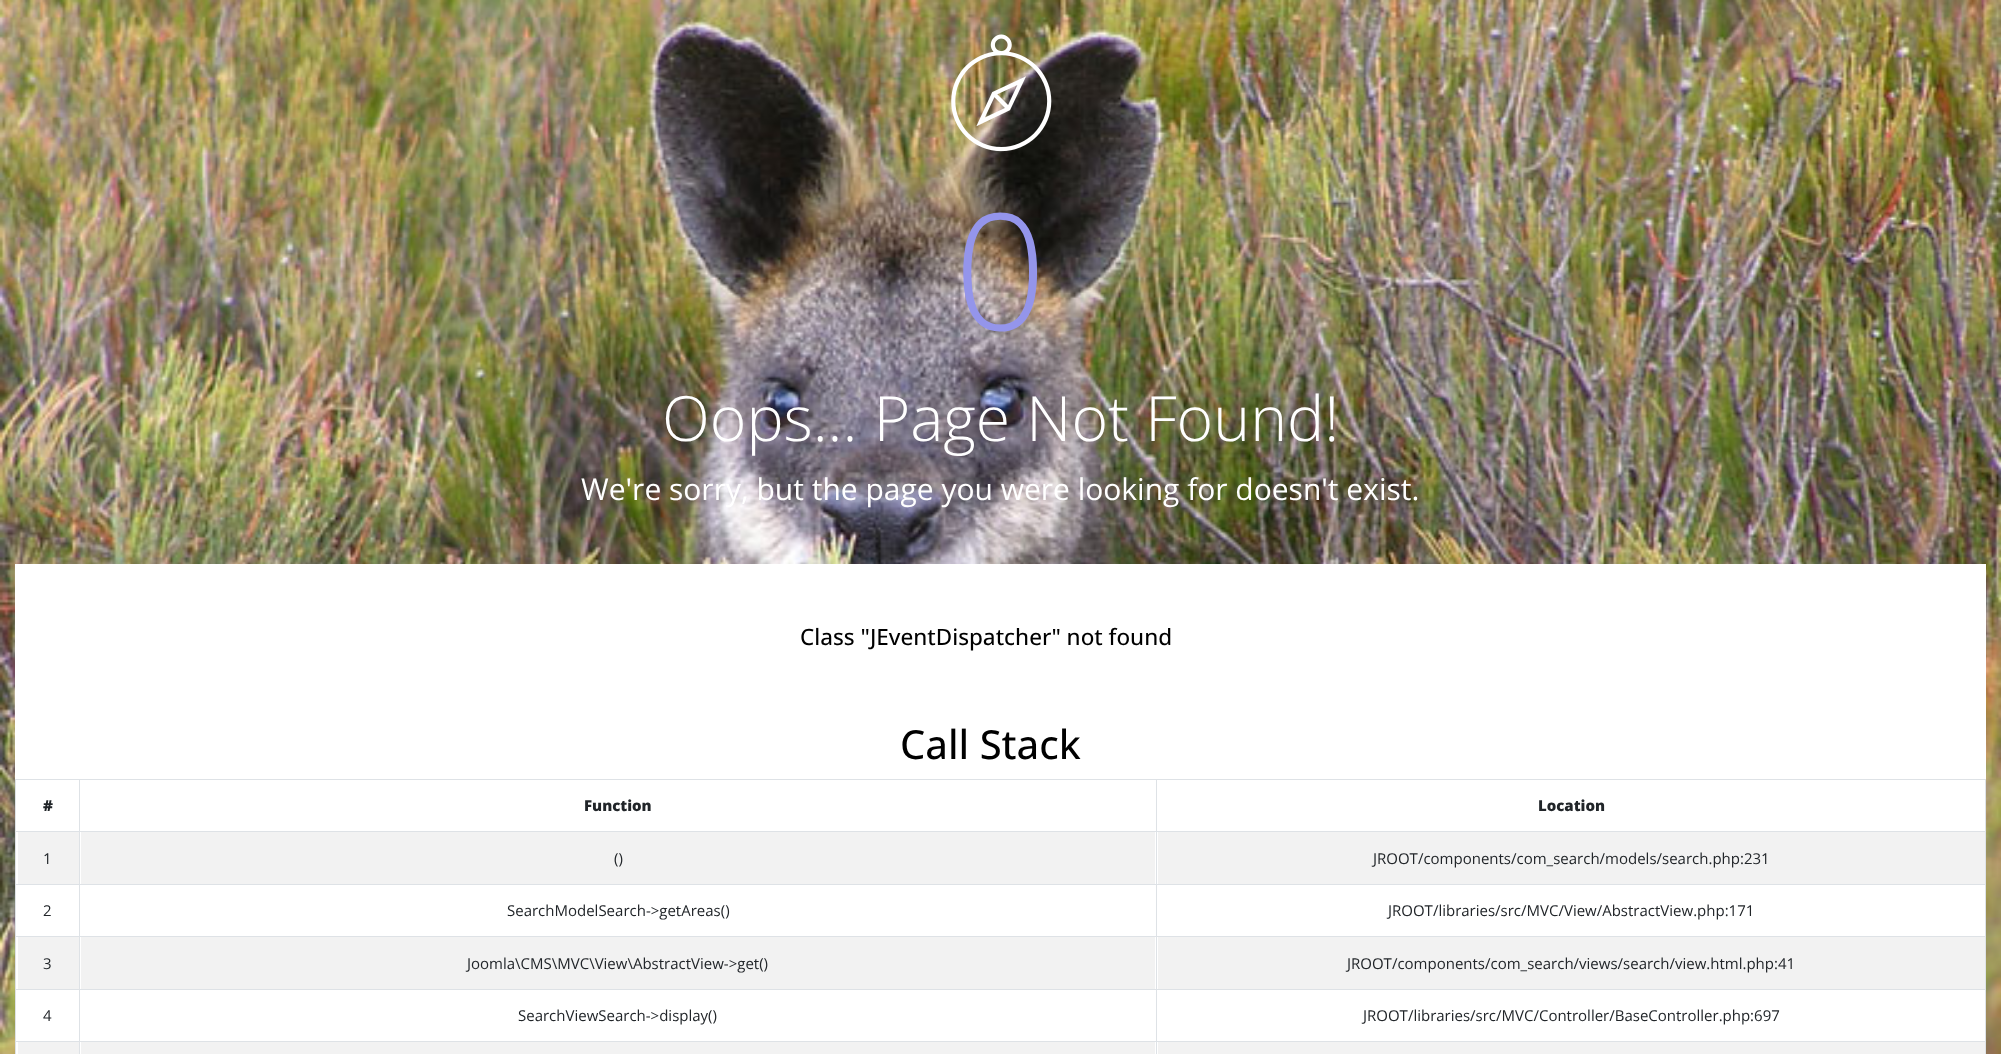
<svg xmlns="http://www.w3.org/2000/svg" width="2001" height="1054" viewBox="0 0 2001 1054">
  <style>
    .t1 { font: 300 162px Open Sans; fill: #9495eb; }
    .t2 { font: 300 62.5px Open Sans; fill: #fff; }
    .t3 { font: 30px Open Sans; fill: #fff; }
    .t4 { font: 500 22.5px Open Sans; fill: #000; }
    .t5 { font: 500 40px Open Sans; fill: #000; }
    .t6 { font: 800 15px Open Sans; fill: #212529; }
    .t7 { font: 15px Open Sans; fill: #212529; }
  </style>
  <rect width="100%" height="100%" fill="#fff"/>
  <image x="0" y="0" width="2001" height="1054" href="images/1.png"/>
  <image x="951" y="34" width="101" height="118" href="images/2.png"/>
  <text x="954" y="330" class="t1">0</text>
  <text x="662" y="441" class="t2">Oops... Page Not Found!</text>
  <text x="581" y="500" class="t3">We're sorry, but the page you were looking for doesn't exist.</text>
  <rect x="15" y="564" width="1971" height="490" fill="#fff"/>
  <text x="800" y="645" class="t4">Class "JEventDispatcher" not found</text>
  <text x="900" y="759" class="t5">Call Stack</text>
  <rect x="15" y="779" width="1971" height="1" fill="#dee2e6"/>
  <text x="43" y="811" class="t6">#</text>
  <text x="584" y="811" class="t6">Function</text>
  <text x="1538" y="811" class="t6">Location</text>
  <rect x="15" y="1041" width="1971" height="1" fill="#dee2e6"/>
  <rect x="18" y="1042" width="61" height="12" fill="#f2f2f2"/>
  <rect x="15" y="831" width="1971" height="1" fill="#dee2e6"/>
  <rect x="15" y="884" width="1971" height="1" fill="#dee2e6"/>
  <rect x="15" y="936" width="1971" height="1" fill="#dee2e6"/>
  <rect x="15" y="989" width="1971" height="1" fill="#dee2e6"/>
  <rect x="15" y="779" width="1" height="275" fill="#dee2e6"/>
  <rect x="81" y="1042" width="1074" height="12" fill="#f2f2f2"/>
  <rect x="79" y="779" width="1" height="275" fill="#dee2e6"/>
  <rect x="1158" y="1042" width="827" height="12" fill="#f2f2f2"/>
  <rect x="1985" y="779" width="1" height="275" fill="#dee2e6"/>
  <rect x="1156" y="779" width="1" height="275" fill="#dee2e6"/>
  <rect x="18" y="832" width="61" height="52" fill="#f2f2f2"/>
  <text x="43" y="864" class="t7">1</text>
  <rect x="81" y="832" width="1074" height="52" fill="#f2f2f2"/>
  <text x="614" y="864" class="t7">()</text>
  <rect x="1158" y="832" width="827" height="52" fill="#f2f2f2"/>
  <text x="1373" y="864" class="t7">JROOT/components/com_search/models/search.php:231</text>
  <text x="43" y="916" class="t7">2</text>
  <text x="507" y="916" class="t7">SearchModelSearch-&gt;getAreas()</text>
  <text x="1388" y="916" class="t7">JROOT/libraries/src/MVC/View/AbstractView.php:171</text>
  <rect x="18" y="937" width="61" height="52" fill="#f2f2f2"/>
  <text x="43" y="969" class="t7">3</text>
  <rect x="81" y="937" width="1074" height="52" fill="#f2f2f2"/>
  <text x="467" y="969" class="t7">Joomla\CMS\MVC\View\AbstractView-&gt;get()</text>
  <rect x="1158" y="937" width="827" height="52" fill="#f2f2f2"/>
  <text x="1347" y="969" class="t7">JROOT/components/com_search/views/search/view.html.php:41</text>
  <text x="43" y="1021" class="t7">4</text>
  <text x="518" y="1021" class="t7">SearchViewSearch-&gt;display()</text>
  <text x="1363" y="1021" class="t7">JROOT/libraries/src/MVC/Controller/BaseController.php:697</text>
</svg>
